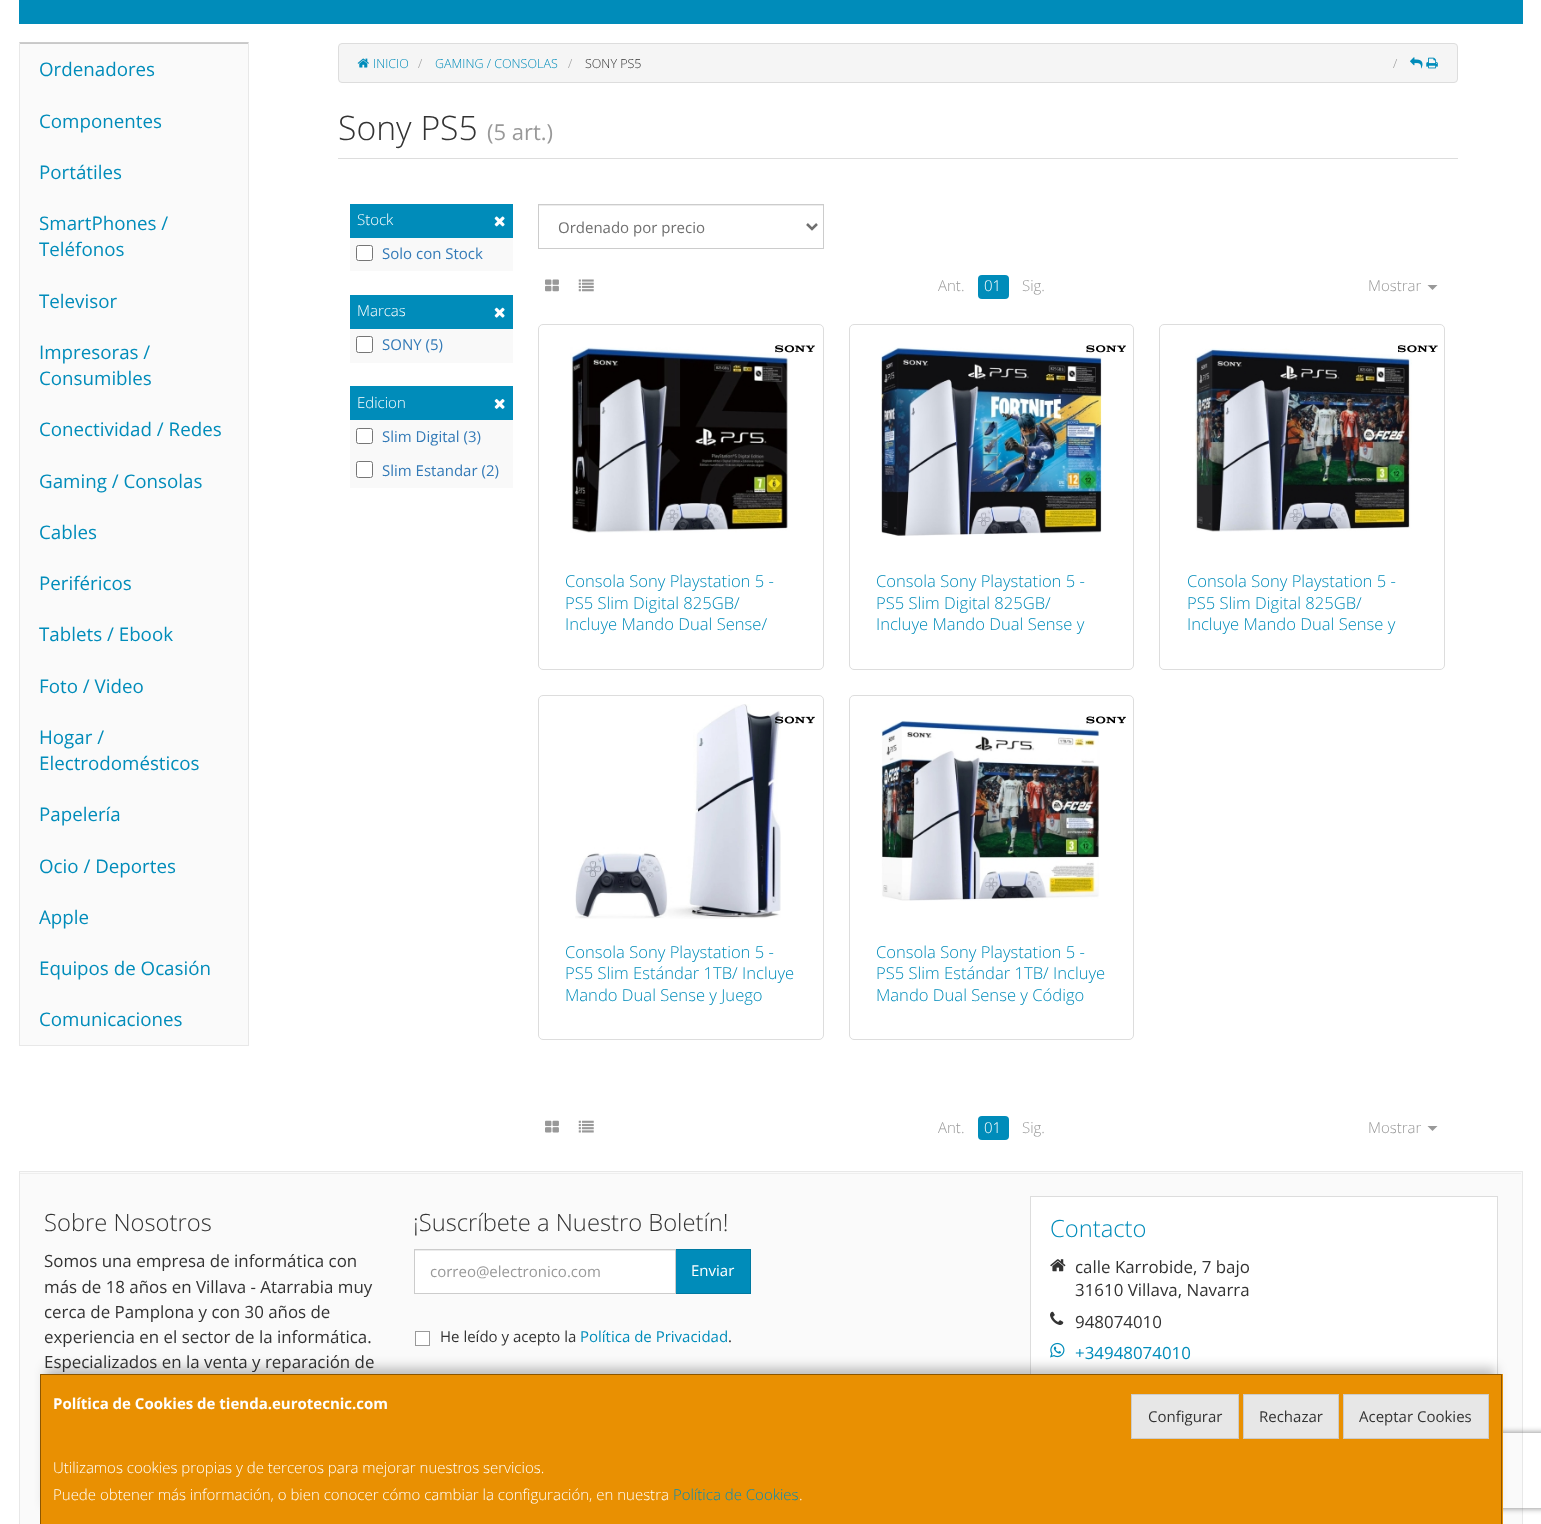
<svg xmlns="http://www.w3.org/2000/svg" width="1541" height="1524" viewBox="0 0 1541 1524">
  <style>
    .t1 { font: 18.75px Open Sans; fill: #008cba; }
    .t2 { font: 300 12.5px Open Sans; fill: #008cba; }
    .t3 { font: 300 12.5px Open Sans; fill: #999; }
    .t4 { font: 300 12.5px Open Sans; fill: #333; }
    .t5 { font: 300 33.75px Open Sans; fill: #333; }
    .t6 { font: 22px Open Sans; fill: #999; }
    .t7 { font: 300 15px Open Sans; fill: #fff; }
    .t8 { font: 15px Open Sans; fill: #337ab7; }
    .t9 { font: 15px Open Sans; fill: #6f6f6f; }
    .t10 { font: 300 15px Open Sans; fill: #999; }
    .t11 { font: 300 16.6px Open Sans; fill: #008cba; }
    .t12 { font: 300 23.75px Open Sans; fill: #333; }
    .t13 { font: 16.9px Open Sans; fill: #333; }
    .t14 { font: 15px Open Sans; fill: #999; }
    .t15 { font: 15px Open Sans; fill: #fff; }
    .t16 { font: 15px Open Sans; fill: #333; }
    .t17 { font: 15px Open Sans; fill: #008cba; }
    .t18 { font: 300 23.75px Open Sans; fill: #008cba; }
    .t19 { font: 16.9px Open Sans; fill: #008cba; }
    .t20 { font: bold 15px Open Sans; fill: #fff; }
    .t21 { font: 300 15px Open Sans; fill: #008cba; }
  </style>
  <defs>
    <clipPath id="clip1"><path d="M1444 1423H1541V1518H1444ZM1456.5 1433H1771.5C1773 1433 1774 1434 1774 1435.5V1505.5C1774 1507 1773 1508 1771.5 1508H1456.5C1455 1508 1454 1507 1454 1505.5V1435.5C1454 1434 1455 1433 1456.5 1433Z" clip-rule="evenodd"/></clipPath>
  </defs>
  <rect width="100%" height="100%" fill="#fff"/>
  <rect x="19" y="0" width="1504" height="24" fill="#008cba"/>
  <rect x="19" y="43" width="230" height="1002" fill="#fafafa"/>
  <path d="M19 42H249L248 44H20Z" fill="#00000033"/>
  <path d="M249 42V1046L248 1045V44Z" fill="#e8e8e8"/>
  <rect x="19" y="1045" width="230" height="1" fill="#e8e8e8"/>
  <path d="M19 1046V42L20 44V1045Z" fill="#e8e8e8"/>
  <text x="39" y="76" class="t1">Ordenadores</text>
  <text x="39" y="128" class="t1">Componentes</text>
  <text x="39" y="179" class="t1">Portátiles</text>
  <text x="39" y="230" class="t1">SmartPhones /</text>
  <text x="39" y="256" class="t1">Teléfonos</text>
  <text x="39" y="308" class="t1">Televisor</text>
  <text x="39" y="359" class="t1">Impresoras /</text>
  <text x="39" y="385" class="t1">Consumibles</text>
  <text x="39" y="436" class="t1">Conectividad / Redes</text>
  <text x="39" y="488" class="t1">Gaming / Consolas</text>
  <text x="39" y="539" class="t1">Cables</text>
  <text x="39" y="590" class="t1">Periféricos</text>
  <text x="39" y="641" class="t1">Tablets / Ebook</text>
  <text x="39" y="693" class="t1">Foto / Video</text>
  <text x="39" y="744" class="t1">Hogar /</text>
  <text x="39" y="770" class="t1">Electrodomésticos</text>
  <text x="39" y="821" class="t1">Papelería</text>
  <text x="39" y="873" class="t1">Ocio / Deportes</text>
  <text x="39" y="924" class="t1">Apple</text>
  <text x="39" y="975" class="t1">Equipos de Ocasión</text>
  <text x="39" y="1026" class="t1">Comunicaciones</text>
  <rect x="338.5" y="43.5" width="1119" height="39" rx="3.5" fill="#f5f5f5" stroke="#ddd"/>
  <image x="357" y="58" width="12" height="10" href="images/1.png"/>
  <text x="373" y="68" class="t2">INICIO</text>
  <text x="418" y="68" class="t3">/</text>
  <text x="435" y="68" class="t2">GAMING / CONSOLAS</text>
  <text x="568" y="68" class="t3">/</text>
  <text x="585" y="68" class="t4">SONY PS5</text>
  <text x="1393" y="68" class="t3">/</text>
  <image x="1410" y="57" width="13" height="12" href="images/2.png"/>
  <image x="1426" y="57" width="12" height="12" href="images/3.png"/>
  <rect x="338" y="158" width="1120" height="1" fill="#ddd"/>
  <text x="338" y="140" class="t5">Sony PS5</text>
  <text x="487" y="140" class="t6">(5 art.)</text>
  <rect x="350" y="204" width="163" height="34" fill="#008cba"/>
  <text x="357" y="225" class="t7">Stock</text>
  <image x="494" y="216" width="11" height="11" href="images/4.png"/>
  <rect x="350" y="238" width="163" height="33" fill="#f9f9f9"/>
  <rect x="356.5" y="245.5" width="16" height="15" rx="2" fill="#fff" stroke="#767676"/>
  <text x="382" y="259" class="t8">Solo con Stock</text>
  <rect x="350" y="295" width="163" height="34" fill="#008cba"/>
  <text x="357" y="316" class="t7">Marcas</text>
  <image x="494" y="307" width="11" height="11" href="images/5.png"/>
  <rect x="350" y="329" width="163" height="34" fill="#f9f9f9"/>
  <rect x="356.5" y="336.5" width="16" height="16" rx="2" fill="#fff" stroke="#767676"/>
  <text x="382" y="350" class="t8">SONY (5)</text>
  <rect x="350" y="386" width="163" height="34" fill="#008cba"/>
  <text x="357" y="408" class="t7">Edicion</text>
  <image x="494" y="399" width="11" height="10" href="images/6.png"/>
  <rect x="350" y="420" width="163" height="68" fill="#f9f9f9"/>
  <rect x="356.5" y="428.5" width="16" height="15" rx="2" fill="#fff" stroke="#767676"/>
  <text x="382" y="442" class="t8">Slim Digital (3)</text>
  <rect x="356.5" y="461.5" width="16" height="16" rx="2" fill="#fff" stroke="#767676"/>
  <text x="382" y="476" class="t8">Slim Estandar (2)</text>
  <rect x="539" y="205" width="284" height="1" fill="#ececec"/>
  <rect x="538.5" y="204.5" width="285" height="44" fill="none" stroke="#ccc"/>
  <path d="M807 224L812 229L817 224" fill="none" stroke="#6f6f6f" stroke-width="2.5"/>
  <text x="558" y="233" class="t9">Ordenado por precio</text>
  <image x="545" y="279" width="14" height="13" href="images/7.png"/>
  <image x="578" y="279" width="16" height="13" href="images/8.png"/>
  <text x="938" y="291" class="t10">Ant.</text>
  <rect x="978" y="275" width="31" height="24" rx="4" fill="#008cba"/>
  <text x="984" y="291" class="t7">01</text>
  <text x="1022" y="291" class="t10">Sig.</text>
  <text x="1368" y="291" class="t10">Mostrar</text>
  <path d="M1427.5 285H1437.5L1432.5 290Z" fill="#999"/>
  <rect x="538.5" y="324.5" width="285" height="345" rx="4.5" fill="none" stroke="#ddd"/>
  <image x="570" y="347" width="220" height="186" href="images/9.png"/>
  <image x="775" y="345" width="40" height="8" href="images/10.png"/>
  <text x="565" y="587" class="t11">Consola Sony Playstation 5 -</text>
  <text x="565" y="609" class="t11">PS5 Slim Digital 825GB/</text>
  <text x="565" y="630" class="t11">Incluye Mando Dual Sense/</text>
  <rect x="849.5" y="324.5" width="284" height="345" rx="4.5" fill="none" stroke="#ddd"/>
  <image x="881" y="347" width="221" height="189" href="images/11.png"/>
  <image x="1086" y="345" width="40" height="8" href="images/12.png"/>
  <text x="876" y="587" class="t11">Consola Sony Playstation 5 -</text>
  <text x="876" y="609" class="t11">PS5 Slim Digital 825GB/</text>
  <text x="876" y="630" class="t11">Incluye Mando Dual Sense y</text>
  <rect x="1159.5" y="324.5" width="285" height="345" rx="4.5" fill="none" stroke="#ddd"/>
  <image x="1195" y="348" width="217" height="184" href="images/13.png"/>
  <image x="1398" y="345" width="40" height="8" href="images/14.png"/>
  <text x="1187" y="587" class="t11">Consola Sony Playstation 5 -</text>
  <text x="1187" y="609" class="t11">PS5 Slim Digital 825GB/</text>
  <text x="1187" y="630" class="t11">Incluye Mando Dual Sense y</text>
  <rect x="538.5" y="695.5" width="285" height="344" rx="4.5" fill="none" stroke="#ddd"/>
  <image x="575" y="704" width="206" height="215" href="images/15.png"/>
  <image x="775" y="716" width="40" height="8" href="images/16.png"/>
  <text x="565" y="958" class="t11">Consola Sony Playstation 5 -</text>
  <text x="565" y="979" class="t11">PS5 Slim Estándar 1TB/ Incluye</text>
  <text x="565" y="1001" class="t11">Mando Dual Sense y Juego</text>
  <rect x="849.5" y="695.5" width="284" height="344" rx="4.5" fill="none" stroke="#ddd"/>
  <image x="881" y="720" width="219" height="181" href="images/17.png"/>
  <image x="1086" y="716" width="40" height="8" href="images/18.png"/>
  <text x="876" y="958" class="t11">Consola Sony Playstation 5 -</text>
  <text x="876" y="979" class="t11">PS5 Slim Estándar 1TB/ Incluye</text>
  <text x="876" y="1001" class="t11">Mando Dual Sense y Código</text>
  <image x="545" y="1120" width="14" height="13" href="images/19.png"/>
  <image x="578" y="1120" width="16" height="13" href="images/20.png"/>
  <text x="938" y="1133" class="t10">Ant.</text>
  <rect x="978" y="1116" width="31" height="24" rx="4" fill="#008cba"/>
  <text x="984" y="1133" class="t7">01</text>
  <text x="1022" y="1133" class="t10">Sig.</text>
  <text x="1368" y="1133" class="t10">Mostrar</text>
  <path d="M1427.5 1126H1437.5L1432.5 1131Z" fill="#999"/>
  <rect x="20" y="1172" width="1502" height="352" fill="#fafafa"/>
  <rect x="20" y="1173" width="1501" height="1" fill="#eee"/>
  <rect x="19.5" y="1171.5" width="1503" height="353" fill="none" stroke="#e8e8e8"/>
  <text x="44" y="1231" class="t12">Sobre Nosotros</text>
  <text x="44" y="1267" class="t13">Somos una empresa de informática con</text>
  <text x="44" y="1293" class="t13">más de 18 años en Villava - Atarrabia muy</text>
  <text x="44" y="1318" class="t13">cerca de Pamplona y con 30 años de</text>
  <text x="44" y="1343" class="t13">experiencia en el sector de la informática.</text>
  <text x="44" y="1368" class="t13">Especializados en la venta y reparación de</text>
  <text x="413" y="1231" class="t12">¡Suscríbete a Nuestro Boletín!</text>
  <rect x="415" y="1251" width="260" height="42" fill="#fff"/>
  <rect x="415" y="1250" width="260" height="1" fill="#ececec"/>
  <rect x="675.5" y="1249.5" width="75" height="44" fill="#008cba" stroke="#0079a1"/>
  <rect x="414.5" y="1249.5" width="261" height="44" fill="none" stroke="#ccc"/>
  <text x="430" y="1277" class="t14">correo@electronico.com</text>
  <text x="691" y="1276" class="t15">Enviar</text>
  <rect x="415.5" y="1331.5" width="14" height="14" fill="#fff" stroke="#999"/>
  <text x="440" y="1342" class="t16">He leído y acepto la</text>
  <text x="580" y="1342" class="t17">Política de Privacidad</text>
  <text x="728" y="1342" class="t16">.</text>
  <rect x="1031" y="1197" width="466" height="177" fill="#fff"/>
  <rect x="1030.5" y="1196.5" width="467" height="221" fill="none" stroke="#ddd"/>
  <text x="1050" y="1237" class="t18">Contacto</text>
  <image x="1050" y="1259" width="16" height="13" href="images/21.png"/>
  <text x="1075" y="1273" class="t13">calle Karrobide, 7 bajo</text>
  <text x="1075" y="1296" class="t13">31610 Villava, Navarra</text>
  <image x="1050" y="1311" width="14" height="14" href="images/22.png"/>
  <text x="1075" y="1328" class="t13">948074010</text>
  <image x="1050" y="1342" width="15" height="16" href="images/23.png"/>
  <text x="1075" y="1359" class="t19">+34948074010</text>
  <rect x="46" y="1368" width="1450" height="138" fill="#00000040" filter="blur(6px)"/>
  <g clip-path="url(#clip1)">
    <rect x="1454" y="1433" width="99" height="75" rx="2.5" fill="#808080" filter="blur(3px)"/>
  </g>
  <rect x="40" y="1374" width="1463" height="150" fill="#e99002"/>
  <path d="M40 1374H1502L1501 1375H41Z" fill="#8c5601"/>
  <path d="M1502 1374V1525H1501V1375Z" fill="#00000066"/>
  <path d="M40 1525V1374L41 1375V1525Z" fill="#00000066"/>
  <text x="53" y="1409" class="t20">Política de Cookies de tienda.eurotecnic.com</text>
  <rect x="1131.5" y="1394.5" width="107" height="44" fill="#e7e7e7" stroke="#ccc"/>
  <text x="1148" y="1422" class="t16">Configurar</text>
  <rect x="1243.5" y="1394.5" width="95" height="44" fill="#e7e7e7" stroke="#ccc"/>
  <text x="1259" y="1422" class="t16">Rechazar</text>
  <rect x="1343.5" y="1394.5" width="145" height="44" fill="#e7e7e7" stroke="#ccc"/>
  <text x="1359" y="1422" class="t16">Aceptar Cookies</text>
  <text x="53" y="1473" class="t7">Utilizamos cookies propias y de terceros para mejorar nuestros servicios.</text>
  <text x="53" y="1500" class="t7">Puede obtener más información, o bien conocer cómo cambiar la configuración, en nuestra</text>
  <text x="673" y="1500" class="t21">Política de Cookies</text>
  <text x="799" y="1500" class="t7">.</text>
</svg>
